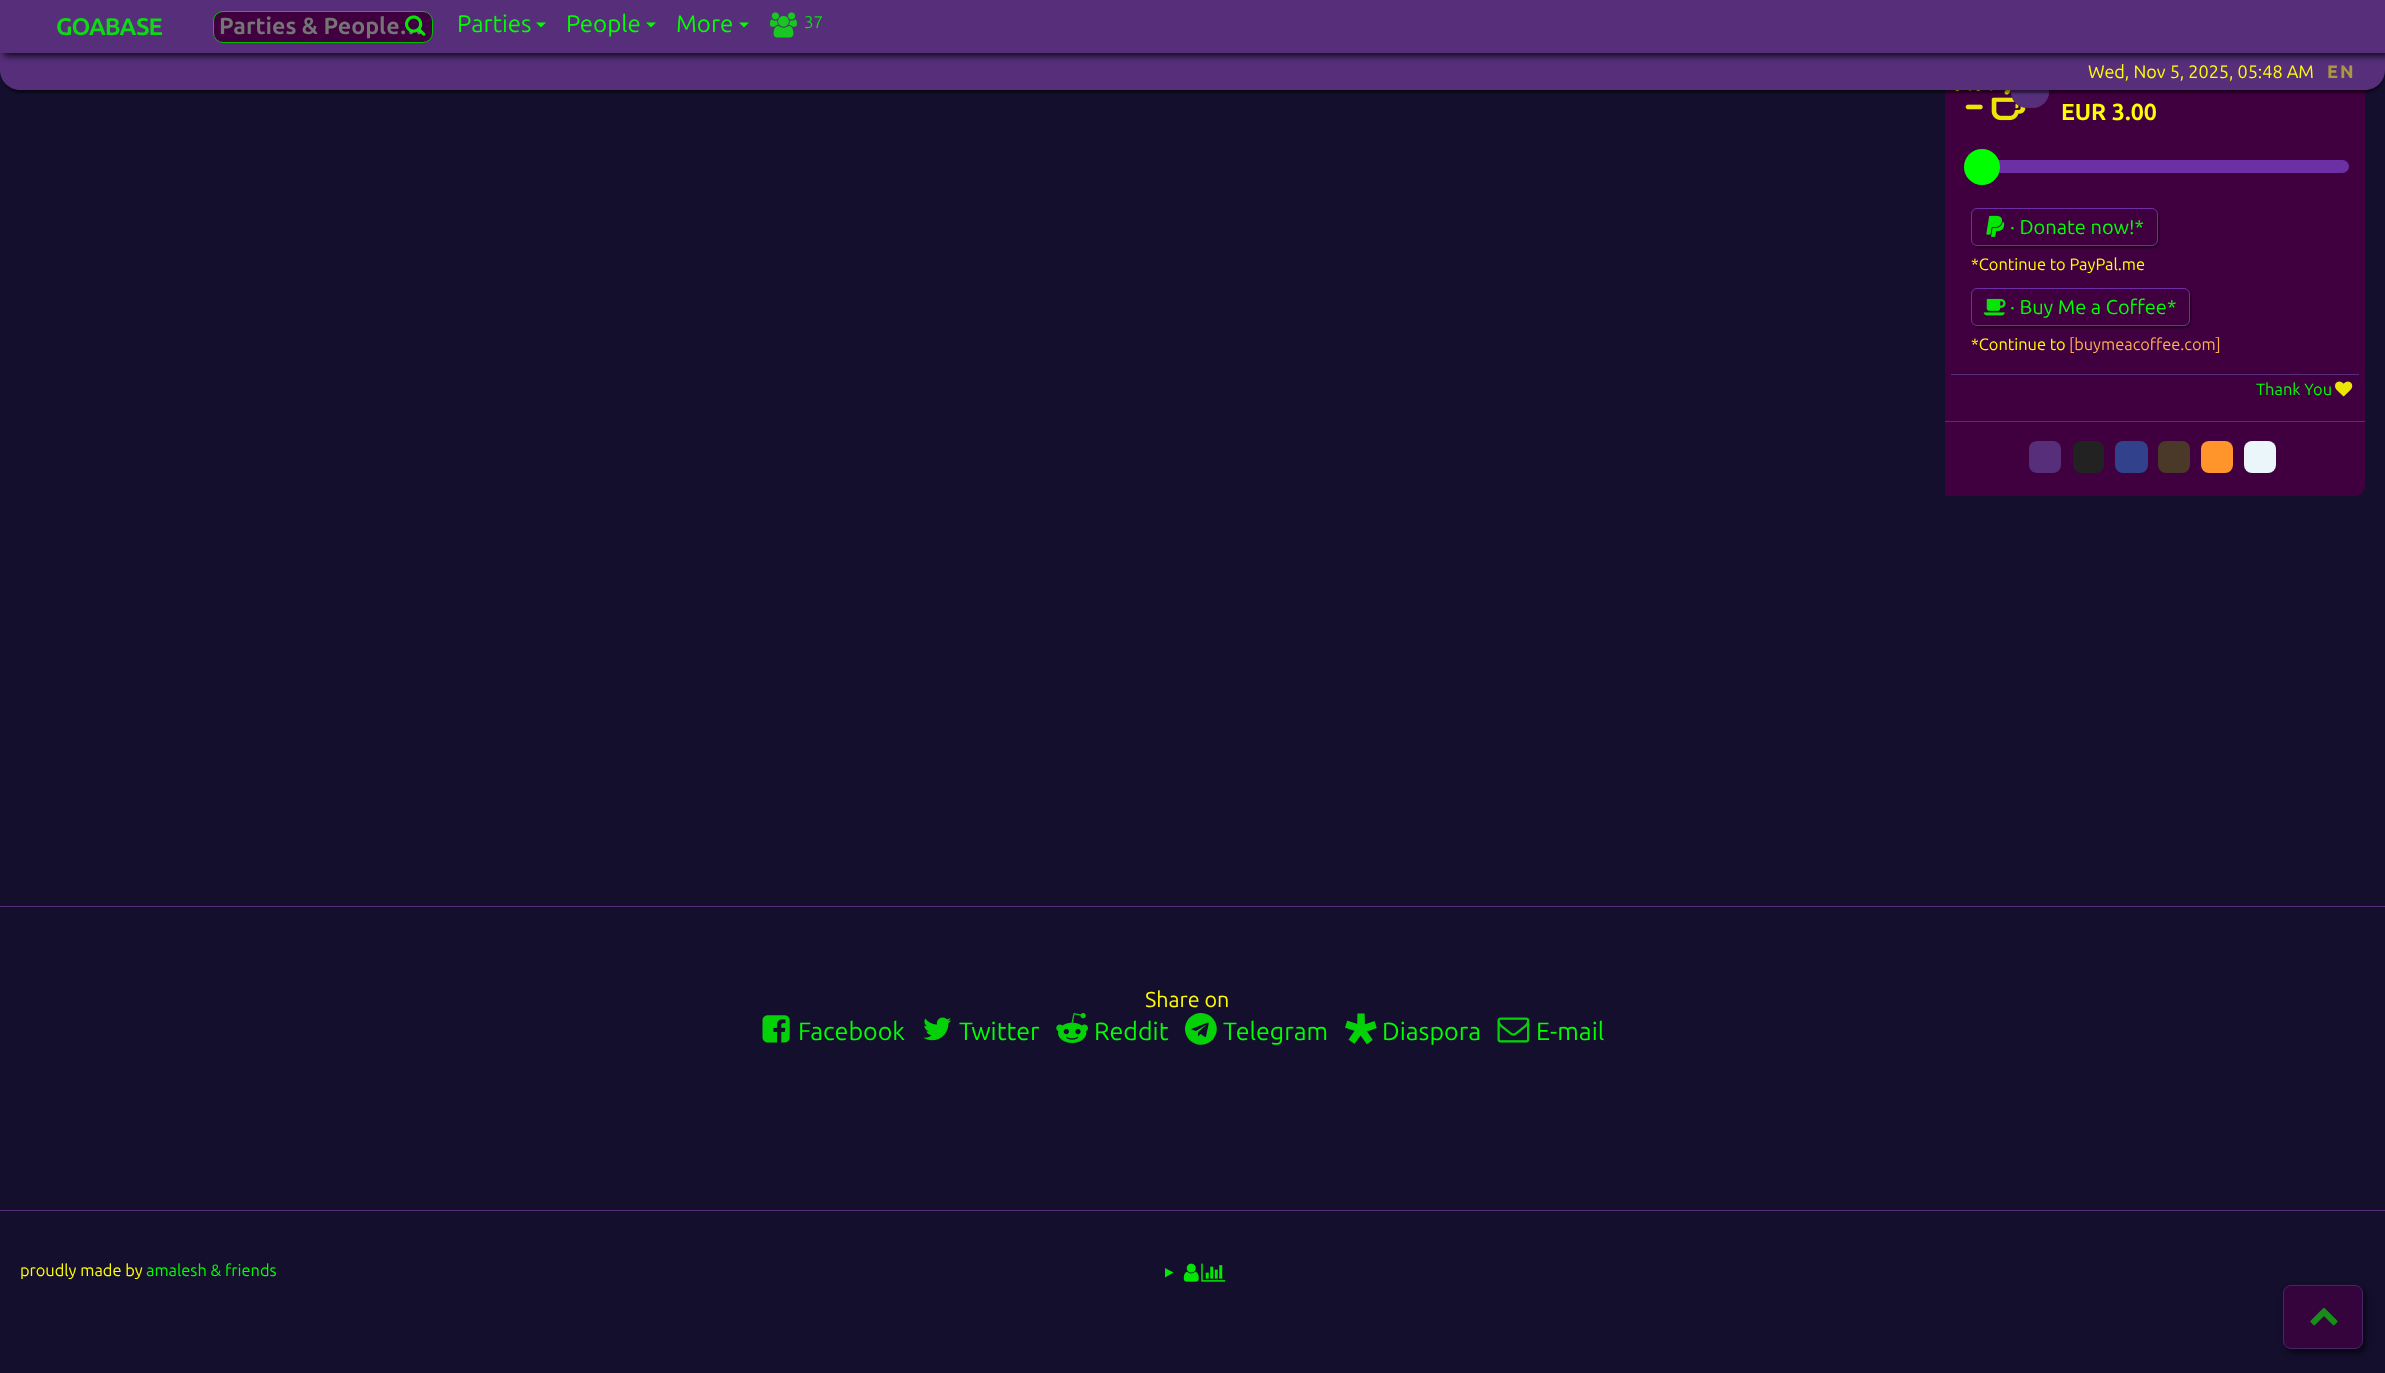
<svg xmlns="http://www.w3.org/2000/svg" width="2385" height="1373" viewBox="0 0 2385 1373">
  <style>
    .t1 { font: bold 24px Ubuntu; letter-spacing: -1px; fill: #0fd916; }
    .t2 { font: bold 23.25px Ubuntu; fill: #757575; }
    .t3 { font: 24px Ubuntu; fill: #0f0; }
    .t4 { font: 17px Ubuntu; fill: #0fd916; }
    .t5 { font: 18px Ubuntu; fill: #ff0; }
    .t6 { font: 800 18px Ubuntu; letter-spacing: 2px; fill: #ab973d; }
    .t7 { font: bold 23.25px Ubuntu; fill: #ff0; }
    .t8 { font: 20px Ubuntu; fill: #0f0; }
    .t9 { font: 16.4px Ubuntu; fill: #ff0; }
    .t10 { font: 16.4px Ubuntu; fill: #ffad52; }
    .t11 { font: 16.4px Ubuntu; fill: #0f0; }
    .t12 { font: 21.5px Ubuntu; fill: #ff0; }
    .t13 { font: 25px Ubuntu; fill: #0f0; }
  </style>
  <defs>
    <clipPath id="clip1"><path d="M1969 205H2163V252H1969ZM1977 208H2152C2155.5 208 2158 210.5 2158 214V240C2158 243.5 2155.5 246 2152 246H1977C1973.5 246 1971 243.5 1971 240V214C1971 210.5 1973.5 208 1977 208Z" clip-rule="evenodd"/></clipPath>
    <clipPath id="clip2"><path d="M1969 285H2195V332H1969ZM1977 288H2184C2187.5 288 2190 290.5 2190 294V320C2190 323.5 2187.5 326 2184 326H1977C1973.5 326 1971 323.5 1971 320V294C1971 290.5 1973.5 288 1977 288Z" clip-rule="evenodd"/></clipPath>
  </defs>
  <rect width="100%" height="100%" fill="#150f2e"/>
  <path d="M1945-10H2365V486C2365 491.5 2360.5 496 2355 496H1945Z" fill="#400040"/>
  <image x="1955" y="90" width="71" height="31" href="images/3.png"/>
  <rect x="2011" y="76" width="38" height="32" rx="16" fill="#562e7a"/>
  <path d="M2043.5 81.5C2047 85 2049 90 2048 95C2046.5 100.5 2042 105.5 2036 106.5L2030 107L2024 106.5C2017 105 2012 99 2012 92C2012 88 2013.5 84 2016.5 81.5" fill="none" stroke="#562e7a" stroke-width="1.2"/>
  <rect x="3" y="60" width="2380" height="33" rx="18" fill="#00000080" filter="blur(1px)"/>
  <path d="M0 53H2385V70C2385 81 2376 90 2365 90H20C9 90 0 81 0 70Z" fill="#562e7a"/>
  <rect x="4" y="4" width="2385" height="52" fill="#000000cc" filter="blur(3px)"/>
  <rect x="0" y="0" width="2385" height="53" fill="#562e7a"/>
  <text x="56" y="35" class="t1">GOABASE</text>
  <rect x="213.5" y="11.5" width="219" height="31" rx="9.5" fill="#400040" stroke="#00bf00"/>
  <text x="219" y="34" class="t2">Parties &amp; People…</text>
  <image x="405" y="15" width="21" height="21" href="images/1.png"/>
  <text x="457" y="32" class="t3">Parties</text>
  <path d="M536 22.5H546L541 27.5Z" fill="#0f0"/>
  <text x="566" y="32" class="t3">People</text>
  <path d="M646 22.5H656L651 27.5Z" fill="#0f0"/>
  <text x="676" y="32" class="t3">More</text>
  <path d="M739 22.5H749L744 27.5Z" fill="#0f0"/>
  <image x="770" y="12" width="27" height="26" href="images/2.png"/>
  <text x="804" y="28" class="t4">37</text>
  <text x="2088" y="78" class="t5">Wed, Nov 5, 2025, 05:48 AM</text>
  <text x="2327" y="78" class="t6">EN</text>
  <text x="2061" y="120" class="t7">EUR 3.00</text>
  <rect x="1964" y="160" width="385" height="13" rx="6.5" fill="#6c30a4"/>
  <circle cx="1982" cy="167" r="18" fill="#0f0"/>
  <g clip-path="url(#clip1)">
    <rect x="1973" y="209" width="186" height="39" rx="6" fill="#00000073" filter="blur(1px)"/>
  </g>
  <rect x="1971.5" y="208.5" width="186" height="37" rx="5.5" fill="none" stroke="#6c30a4"/>
  <image x="1986" y="215" width="19" height="22" href="images/4.png"/>
  <text x="2010" y="234" class="t8">· Donate now!*</text>
  <text x="1971" y="270" class="t9">*Continue to PayPal.me</text>
  <g clip-path="url(#clip2)">
    <rect x="1973" y="289" width="218" height="39" rx="6" fill="#00000073" filter="blur(1px)"/>
  </g>
  <rect x="1971.5" y="288.5" width="218" height="37" rx="5.5" fill="none" stroke="#6c30a4"/>
  <image x="1983" y="298" width="23" height="18" href="images/5.png"/>
  <text x="2010" y="314" class="t8">· Buy Me a Coffee*</text>
  <text x="1971" y="350" class="t9">*Continue to</text>
  <text x="2069" y="350" class="t10">[buymeacoffee.com]</text>
  <rect x="1951" y="374" width="408" height="1" fill="#562e7a"/>
  <text x="2256" y="395" class="t11">Thank You</text>
  <image x="2335" y="381" width="18" height="16" href="images/6.png"/>
  <rect x="1945" y="421" width="420" height="1" fill="#562e7a"/>
  <rect x="2029" y="441" width="32" height="32" rx="8" fill="#562e7a"/>
  <rect x="2073" y="441" width="31" height="32" rx="8" fill="#222"/>
  <rect x="2115" y="441" width="33" height="32" rx="8" fill="#31418c"/>
  <rect x="2158" y="441" width="32" height="32" rx="8" fill="#4a3929"/>
  <rect x="2201" y="441" width="32" height="32" rx="8" fill="#ff952b"/>
  <rect x="2244" y="441" width="32" height="32" rx="8" fill="#eaf6f9"/>
  <rect x="0" y="906" width="2385" height="1" fill="#562e7a"/>
  <text x="1145" y="1007" class="t12">Share on</text>
  <image x="762" y="1015" width="28" height="28" href="images/7.png"/>
  <text x="798" y="1040" class="t13">Facebook</text>
  <image x="923" y="1017" width="28" height="24" href="images/8.png"/>
  <text x="959" y="1040" class="t13">Twitter</text>
  <image x="1056" y="1013" width="32" height="30" href="images/9.png"/>
  <text x="1094" y="1040" class="t13">Reddit</text>
  <image x="1185" y="1013" width="32" height="32" href="images/10.png"/>
  <text x="1223" y="1040" class="t13">Telegram</text>
  <image x="1345" y="1013" width="32" height="32" href="images/11.png"/>
  <text x="1382" y="1040" class="t13">Diaspora</text>
  <image x="1497" y="1017" width="33" height="26" href="images/12.png"/>
  <text x="1536" y="1040" class="t13">E-mail</text>
  <rect x="0" y="1210" width="2385" height="1" fill="#562e7a"/>
  <text x="20" y="1276" class="t9">proudly made by</text>
  <text x="146" y="1276" class="t11">amalesh &amp; friends</text>
  <path d="M1165 1268L1173.5 1272.5L1165 1277.5Z" fill="#02e705"/>
  <image x="1183" y="1263" width="16" height="19" href="images/13.png"/>
  <image x="1201" y="1263" width="25" height="19" href="images/14.png"/>
  <rect x="2286" y="1289" width="80" height="64" rx="8" fill="#05040ccc" filter="blur(3px)"/>
  <rect x="2283.5" y="1285.5" width="79" height="63" rx="7.5" fill="#35043c" stroke="#462667"/>
  <image x="2310" y="1307" width="28" height="19" href="images/15.png"/>
</svg>
